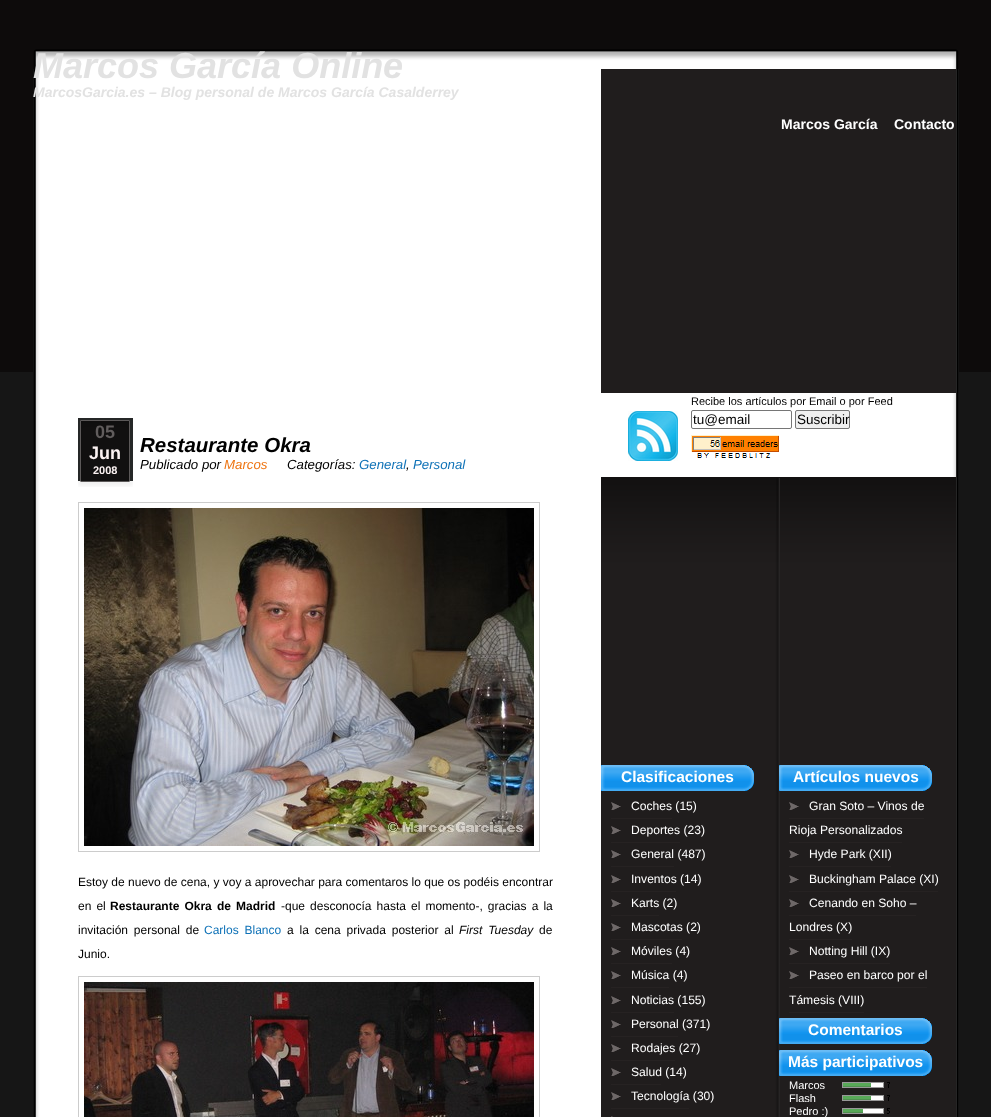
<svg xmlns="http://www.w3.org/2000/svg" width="991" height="1117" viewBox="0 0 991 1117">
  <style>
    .t1 { font: italic bold 36px Liberation Sans; fill: #e2e2e2; }
    .t2 { font: italic bold 14px Liberation Sans; fill: #e2e2e2; }
    .t3 { font: bold 14px Liberation Sans; fill: #fff; }
    .t4 { font: bold 18px Liberation Sans; fill: #615d5d; }
    .t5 { font: bold 18px Liberation Sans; fill: #fbf2f2; }
    .t6 { font: bold 11px Liberation Sans; fill: #fbf2f2; }
    .t7 { font: italic bold 20.5px Liberation Sans; fill: #000; }
    .t8 { font: italic 13.25px Liberation Sans; fill: #000; }
    .t9 { font: italic 13.25px Liberation Sans; fill: #ee7411; }
    .t10 { font: italic 13.25px Liberation Sans; fill: #0f72b7; }
    .t11 { font: 12px Liberation Sans; fill: #000; }
    .t12 { font: bold 12px Liberation Sans; fill: #000; }
    .t13 { font: 12px Liberation Sans; fill: #0f72b7; }
    .t14 { font: italic 12px Liberation Sans; fill: #000; }
    .t15 { font: 11px Liberation Sans; fill: #000; }
    .t16 { font: 13.5px Liberation Sans; fill: #000; }
    .t17 { font: bold 15.5px Liberation Sans; fill: #fff; }
    .t18 { font: 12.1px Liberation Sans; fill: #fff; }
    .t19 { font: 11px Liberation Sans; fill: #fff; }
  </style>
  <rect width="100%" height="100%" fill="#161616"/>
  <rect x="0" y="0" width="991" height="372" fill="#0d0b0b"/>
  <image x="33" y="69" width="926" height="1048" href="images/1.png"/>
  <image x="33" y="45" width="926" height="24" href="images/2.png"/>
  <text x="33" y="78" class="t1">Marcos García Online</text>
  <text x="33" y="97" class="t2">MarcosGarcia.es – Blog personal de Marcos García Casalderrey</text>
  <text x="781" y="129" class="t3">Marcos García</text>
  <text x="894" y="129" class="t3">Contacto</text>
  <image x="78" y="418" width="55" height="69" href="images/3.png"/>
  <text x="95" y="438" class="t4">05</text>
  <text x="89" y="459" class="t5">Jun</text>
  <text x="93" y="474" class="t6">2008</text>
  <text x="140" y="452" class="t7">Restaurante Okra</text>
  <text x="140" y="469" class="t8">Publicado por</text>
  <text x="224" y="469" class="t9">Marcos</text>
  <text x="287" y="469" class="t8">Categorías:</text>
  <text x="359" y="469" class="t10">General</text>
  <text x="413" y="469" class="t10">Personal</text>
  <text x="406" y="469" class="t8">,</text>
  <rect x="78.5" y="502.5" width="461" height="349" fill="none" stroke="#ccc"/>
  <image x="84" y="508" width="450" height="338" href="images/4.png"/>
  <text x="78" y="886" class="t11">Estoy de nuevo de cena, y voy a aprovechar para comentaros lo que os podéis encontrar</text>
  <text x="78" y="910" word-spacing="1.75" class="t11">en el</text>
  <text x="110" y="910" word-spacing="1.75" class="t12">Restaurante Okra de Madrid</text>
  <text x="281" y="910" word-spacing="1.75" class="t11">-que desconocía hasta el momento-, gracias a la</text>
  <text x="78" y="934" word-spacing="2.5" class="t11">invitación personal de</text>
  <text x="204" y="934" word-spacing="2.5" class="t13">Carlos Blanco</text>
  <text x="287" y="934" word-spacing="2.5" class="t11">a la cena privada posterior al</text>
  <text x="459" y="934" word-spacing="2.5" class="t14">First Tuesday</text>
  <text x="539" y="934" class="t11">de</text>
  <text x="78" y="958" class="t11">Junio.</text>
  <rect x="78.5" y="976.5" width="461" height="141" fill="none" stroke="#ccc"/>
  <image x="84" y="982" width="450" height="135" href="images/5.png"/>
  <image x="601" y="393" width="355" height="84" href="images/6.png"/>
  <text x="691" y="405" class="t15">Recibe los artículos por Email o por Feed</text>
  <rect x="691.5" y="410.5" width="100" height="18" rx="1.5" fill="none" stroke="#767676"/>
  <text x="693" y="424" class="t16">tu@email</text>
  <rect x="795.5" y="410.5" width="54" height="18" rx="1.5" fill="#efefef" stroke="#767676"/>
  <text x="797" y="424" class="t16">Suscribir</text>
  <image x="691" y="435" width="88" height="23" href="images/7.png"/>
  <image x="601" y="477" width="355" height="640" href="images/8.png"/>
  <image x="601" y="765" width="153" height="26" href="images/9.png"/>
  <text x="621" y="782" class="t17">Clasificaciones</text>
  <image x="611" y="802" width="10" height="8" href="images/10.png"/>
  <text x="631" y="810" class="t18">Coches (15)</text>
  <rect x="611" y="818" width="61" height="1" fill="#262222"/>
  <image x="611" y="826" width="10" height="8" href="images/10.png"/>
  <text x="631" y="834" class="t18">Deportes (23)</text>
  <rect x="611" y="842" width="69" height="1" fill="#262222"/>
  <image x="611" y="850" width="10" height="8" href="images/10.png"/>
  <text x="631" y="858" class="t18">General (487)</text>
  <rect x="611" y="866" width="63" height="1" fill="#262222"/>
  <image x="611" y="875" width="10" height="8" href="images/10.png"/>
  <text x="631" y="883" class="t18">Inventos (14)</text>
  <rect x="611" y="891" width="65" height="1" fill="#262222"/>
  <image x="611" y="899" width="10" height="8" href="images/10.png"/>
  <text x="631" y="907" class="t18">Karts (2)</text>
  <rect x="611" y="915" width="48" height="1" fill="#262222"/>
  <image x="611" y="923" width="10" height="8" href="images/10.png"/>
  <text x="631" y="931" class="t18">Mascotas (2)</text>
  <rect x="611" y="939" width="71" height="1" fill="#262222"/>
  <image x="611" y="947" width="10" height="8" href="images/10.png"/>
  <text x="631" y="955" class="t18">Móviles (4)</text>
  <rect x="611" y="963" width="61" height="1" fill="#262222"/>
  <image x="611" y="971" width="10" height="8" href="images/10.png"/>
  <text x="631" y="979" class="t18">Música (4)</text>
  <rect x="611" y="987" width="58" height="1" fill="#262222"/>
  <image x="611" y="996" width="10" height="8" href="images/10.png"/>
  <text x="631" y="1004" class="t18">Noticias (155)</text>
  <rect x="611" y="1012" width="63" height="1" fill="#262222"/>
  <image x="611" y="1020" width="10" height="8" href="images/10.png"/>
  <text x="631" y="1028" class="t18">Personal (371)</text>
  <rect x="611" y="1036" width="67" height="1" fill="#262222"/>
  <image x="611" y="1044" width="10" height="8" href="images/10.png"/>
  <text x="631" y="1052" class="t18">Rodajes (27)</text>
  <rect x="611" y="1060" width="64" height="1" fill="#262222"/>
  <image x="611" y="1068" width="10" height="8" href="images/10.png"/>
  <text x="631" y="1076" class="t18">Salud (14)</text>
  <rect x="611" y="1084" width="50" height="1" fill="#262222"/>
  <image x="611" y="1092" width="10" height="8" href="images/10.png"/>
  <text x="631" y="1100" class="t18">Tecnología (30)</text>
  <rect x="611" y="1108" width="78" height="1" fill="#262222"/>
  <image x="611" y="1116" width="2" height="1" href="images/11.png"/>
  <image x="779" y="765" width="153" height="26" href="images/9.png"/>
  <text x="793" y="782" class="t17">Artículos nuevos</text>
  <image x="789" y="802" width="10" height="8" href="images/10.png"/>
  <text x="809" y="810" class="t18">Gran Soto – Vinos de</text>
  <rect x="789" y="818" width="135" height="1" fill="#262222"/>
  <text x="789" y="834" class="t18">Rioja Personalizados</text>
  <rect x="789" y="842" width="113" height="1" fill="#262222"/>
  <image x="789" y="850" width="10" height="8" href="images/10.png"/>
  <text x="809" y="858" class="t18">Hyde Park (XII)</text>
  <rect x="789" y="866" width="102" height="1" fill="#262222"/>
  <image x="789" y="875" width="10" height="8" href="images/10.png"/>
  <text x="809" y="883" class="t18">Buckingham Palace (XI)</text>
  <rect x="789" y="891" width="149" height="1" fill="#262222"/>
  <image x="789" y="899" width="10" height="8" href="images/10.png"/>
  <text x="809" y="907" class="t18">Cenando en Soho –</text>
  <rect x="789" y="915" width="127" height="1" fill="#262222"/>
  <text x="789" y="931" class="t18">Londres (X)</text>
  <rect x="789" y="939" width="63" height="1" fill="#262222"/>
  <image x="789" y="947" width="10" height="8" href="images/10.png"/>
  <text x="809" y="955" class="t18">Notting Hill (IX)</text>
  <rect x="789" y="963" width="101" height="1" fill="#262222"/>
  <image x="789" y="971" width="10" height="8" href="images/10.png"/>
  <text x="809" y="979" class="t18">Paseo en barco por el</text>
  <rect x="789" y="987" width="138" height="1" fill="#262222"/>
  <text x="789" y="1004" class="t18">Támesis (VIII)</text>
  <rect x="789" y="1012" width="75" height="1" fill="#262222"/>
  <image x="779" y="1018" width="153" height="26" href="images/9.png"/>
  <text x="808" y="1035" class="t17">Comentarios</text>
  <image x="779" y="1050" width="153" height="26" href="images/9.png"/>
  <text x="788" y="1067" class="t17">Más participativos</text>
  <text x="789" y="1089" class="t19">Marcos</text>
  <image x="842" y="1082" width="48" height="6" href="images/12.png"/>
  <text x="789" y="1102" class="t19">Flash</text>
  <image x="842" y="1095" width="48" height="6" href="images/12.png"/>
  <text x="789" y="1115" class="t19">Pedro :)</text>
  <image x="842" y="1108" width="48" height="6" href="images/13.png"/>
</svg>
